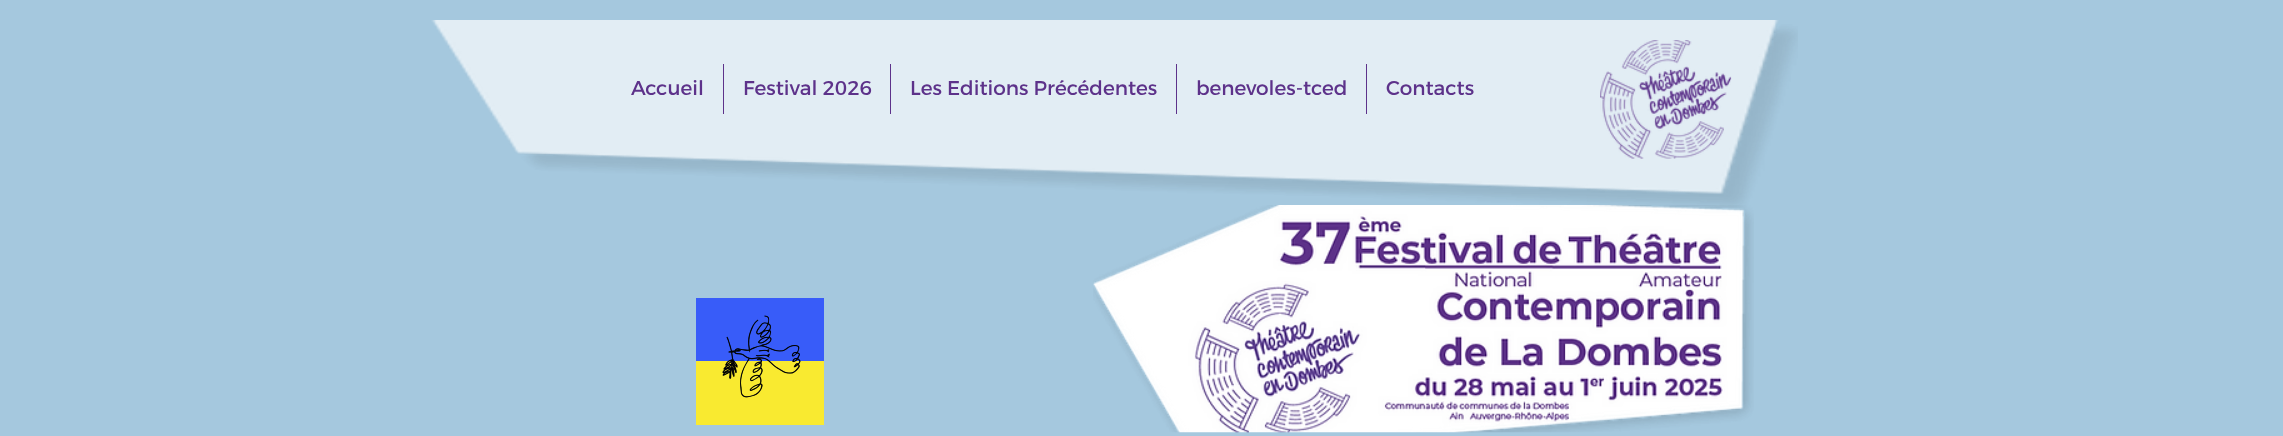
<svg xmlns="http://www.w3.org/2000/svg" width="2283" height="436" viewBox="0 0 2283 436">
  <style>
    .t1 { font: 20px Montserrat; fill: #5d328a; }
  </style>
  <rect width="100%" height="100%" fill="#a5c8de"/>
  <image x="1093" y="205" width="661" height="228" href="images/4.png"/>
  <image x="431" y="20" width="1367" height="188" href="images/1.png"/>
  <text x="631" y="95" class="t1">Accueil</text>
  <rect x="723" y="64" width="1" height="50" fill="#5d328a"/>
  <text x="743" y="95" class="t1">Festival 2026</text>
  <rect x="890" y="64" width="1" height="50" fill="#5d328a"/>
  <text x="910" y="95" class="t1">Les Editions Précédentes</text>
  <rect x="1176" y="64" width="1" height="50" fill="#5d328a"/>
  <text x="1196" y="95" class="t1">benevoles-tced</text>
  <rect x="1366" y="64" width="1" height="50" fill="#5d328a"/>
  <text x="1386" y="95" class="t1">Contacts</text>
  <image x="1600" y="40" width="132" height="119" href="images/2.png"/>
  <image x="696" y="298" width="128" height="127" href="images/3.png"/>
</svg>
